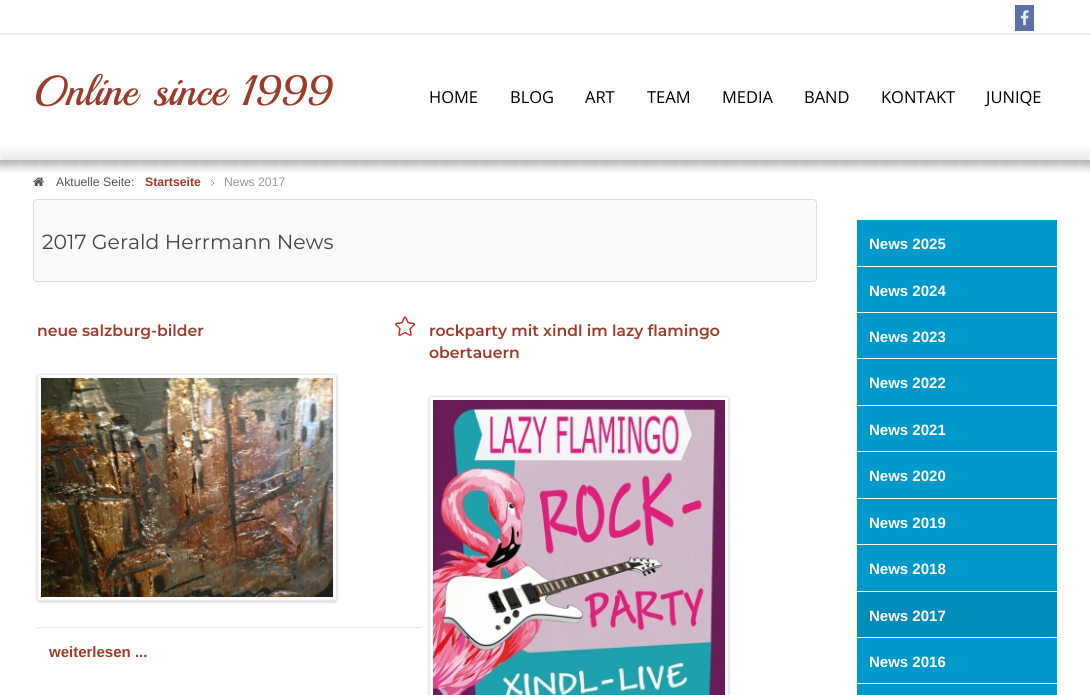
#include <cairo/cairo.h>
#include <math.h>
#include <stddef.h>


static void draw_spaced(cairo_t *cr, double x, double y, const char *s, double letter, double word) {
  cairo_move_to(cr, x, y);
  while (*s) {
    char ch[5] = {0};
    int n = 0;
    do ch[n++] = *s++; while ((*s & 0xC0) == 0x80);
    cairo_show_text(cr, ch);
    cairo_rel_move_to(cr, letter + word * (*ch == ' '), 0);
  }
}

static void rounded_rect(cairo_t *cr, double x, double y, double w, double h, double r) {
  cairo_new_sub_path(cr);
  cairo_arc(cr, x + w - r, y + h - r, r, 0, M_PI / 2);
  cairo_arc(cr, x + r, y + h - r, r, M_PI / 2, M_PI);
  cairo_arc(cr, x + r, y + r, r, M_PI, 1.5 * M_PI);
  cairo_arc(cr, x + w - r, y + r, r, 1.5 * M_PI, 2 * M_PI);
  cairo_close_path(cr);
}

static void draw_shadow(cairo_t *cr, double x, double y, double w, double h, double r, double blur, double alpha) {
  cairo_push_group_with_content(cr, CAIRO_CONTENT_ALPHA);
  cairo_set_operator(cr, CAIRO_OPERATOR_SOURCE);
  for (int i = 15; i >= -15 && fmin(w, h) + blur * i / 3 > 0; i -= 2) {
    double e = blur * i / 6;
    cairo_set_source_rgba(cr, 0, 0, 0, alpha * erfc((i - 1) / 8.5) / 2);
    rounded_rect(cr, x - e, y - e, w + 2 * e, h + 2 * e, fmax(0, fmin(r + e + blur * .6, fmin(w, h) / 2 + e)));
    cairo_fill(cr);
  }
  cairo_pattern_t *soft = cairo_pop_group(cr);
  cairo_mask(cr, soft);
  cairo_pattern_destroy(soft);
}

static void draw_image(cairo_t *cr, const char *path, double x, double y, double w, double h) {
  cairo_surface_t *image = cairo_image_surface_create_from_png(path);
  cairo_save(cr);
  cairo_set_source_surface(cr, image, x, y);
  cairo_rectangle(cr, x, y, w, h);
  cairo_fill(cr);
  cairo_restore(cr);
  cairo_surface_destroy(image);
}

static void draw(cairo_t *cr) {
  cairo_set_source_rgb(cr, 1, 1, 1);
  cairo_paint(cr);
  cairo_set_source_rgb(cr, 234 / 255.0, 234 / 255.0, 234 / 255.0);
  cairo_rectangle(cr, 0, 33, 1090, 2);
  cairo_fill(cr);
  cairo_set_source_rgb(cr, 90 / 255.0, 114 / 255.0, 167 / 255.0);
  cairo_rectangle(cr, 1015, 5, 19, 26);
  cairo_fill(cr);
  draw_image(cr, "images/1.png", 1020, 10, 9, 16);
  cairo_save(cr);
  cairo_rectangle(cr, 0, 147, 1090, 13);
  cairo_clip(cr);
  cairo_set_source_rgb(cr, 0, 0, 0);
  draw_shadow(cr, 0, 153, 1090, 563, 0, 7, 0.1);
  cairo_restore(cr);
  draw_image(cr, "images/2.png", 0, 160, 1090, 13);
  draw_image(cr, "images/3.png", 33, 177, 11, 9);
  draw_image(cr, "images/4.png", 211, 180, 3, 6);
  cairo_set_source_rgb(cr, 250 / 255.0, 250 / 255.0, 250 / 255.0);
  rounded_rect(cr, 33.5, 199.5, 783, 82, 3.5);
  cairo_fill_preserve(cr);
  cairo_set_source_rgb(cr, 221 / 255.0, 221 / 255.0, 221 / 255.0);
  cairo_set_line_width(cr, 1);
  cairo_stroke(cr);
  draw_image(cr, "images/5.png", 395, 316, 20, 20);
  cairo_save(cr);
  cairo_set_fill_rule(cr, CAIRO_FILL_RULE_EVEN_ODD);
  cairo_new_path(cr);
  cairo_move_to(cr, 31, 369);
  cairo_line_to(cr, 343, 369);
  cairo_line_to(cr, 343, 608);
  cairo_line_to(cr, 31, 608);
  cairo_close_path(cr);
  cairo_move_to(cr, 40, 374);
  cairo_line_to(cr, 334, 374);
  cairo_curve_to(cr, 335.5, 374, 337, 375.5, 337, 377);
  cairo_line_to(cr, 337, 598);
  cairo_curve_to(cr, 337, 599.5, 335.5, 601, 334, 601);
  cairo_line_to(cr, 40, 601);
  cairo_curve_to(cr, 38.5, 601, 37, 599.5, 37, 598);
  cairo_line_to(cr, 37, 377);
  cairo_curve_to(cr, 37, 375.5, 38.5, 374, 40, 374);
  cairo_close_path(cr);
  cairo_clip(cr);
  cairo_set_source_rgb(cr, 0, 0, 0);
  draw_shadow(cr, 37, 375, 300, 227, 3, 1.5, 0.2);
  cairo_restore(cr);
  rounded_rect(cr, 37.5, 374.5, 299, 226, 2.5);
  cairo_set_source_rgba(cr, 0, 0, 0, 0.1);
  cairo_stroke(cr);
  draw_image(cr, "images/6.png", 41, 378, 292, 219);
  cairo_set_source_rgb(cr, 230 / 255.0, 230 / 255.0, 230 / 255.0);
  cairo_rectangle(cr, 37, 627, 384, 1);
  cairo_fill(cr);
  cairo_save(cr);
  cairo_set_fill_rule(cr, CAIRO_FILL_RULE_EVEN_ODD);
  cairo_new_path(cr);
  cairo_move_to(cr, 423, 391);
  cairo_line_to(cr, 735, 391);
  cairo_line_to(cr, 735, 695);
  cairo_line_to(cr, 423, 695);
  cairo_close_path(cr);
  cairo_move_to(cr, 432, 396);
  cairo_line_to(cr, 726, 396);
  cairo_curve_to(cr, 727.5, 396, 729, 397.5, 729, 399);
  cairo_line_to(cr, 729, 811);
  cairo_curve_to(cr, 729, 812.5, 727.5, 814, 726, 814);
  cairo_line_to(cr, 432, 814);
  cairo_curve_to(cr, 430.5, 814, 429, 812.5, 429, 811);
  cairo_line_to(cr, 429, 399);
  cairo_curve_to(cr, 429, 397.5, 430.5, 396, 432, 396);
  cairo_close_path(cr);
  cairo_clip(cr);
  cairo_set_source_rgb(cr, 0, 0, 0);
  draw_shadow(cr, 429, 397, 300, 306, 3, 1.5, 0.2);
  cairo_restore(cr);
  rounded_rect(cr, 429.5, 396.5, 299, 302, 2.5);
  cairo_set_source_rgba(cr, 0, 0, 0, 0.1);
  cairo_stroke(cr);
  draw_image(cr, "images/7.png", 433, 400, 292, 295);
  cairo_set_source_rgb(cr, 0, 153 / 255.0, 204 / 255.0);
  cairo_rectangle(cr, 857, 220, 200, 475);
  cairo_fill(cr);
  cairo_set_source_rgb(cr, 1, 1, 1);
  cairo_rectangle(cr, 857, 266, 200, 1);
  cairo_fill(cr);
  cairo_rectangle(cr, 857, 312, 200, 1);
  cairo_fill(cr);
  cairo_rectangle(cr, 857, 358, 200, 1);
  cairo_fill(cr);
  cairo_rectangle(cr, 857, 405, 200, 1);
  cairo_fill(cr);
  cairo_rectangle(cr, 857, 451, 200, 1);
  cairo_fill(cr);
  cairo_rectangle(cr, 857, 498, 200, 1);
  cairo_fill(cr);
  cairo_rectangle(cr, 857, 544, 200, 1);
  cairo_fill(cr);
  cairo_rectangle(cr, 857, 591, 200, 1);
  cairo_fill(cr);
  cairo_rectangle(cr, 857, 637, 200, 1);
  cairo_fill(cr);
  cairo_set_source_rgb(cr, 0, 141 / 255.0, 188 / 255.0);
  cairo_rectangle(cr, 857, 592, 200, 45);
  cairo_fill(cr);
  cairo_set_source_rgb(cr, 1, 1, 1);
  cairo_rectangle(cr, 857, 683, 200, 1);
  cairo_fill(cr);
  cairo_select_font_face(cr, "Playball", CAIRO_FONT_SLANT_NORMAL, CAIRO_FONT_WEIGHT_NORMAL);
  cairo_set_font_size(cr, 42);
  cairo_set_source_rgb(cr, 158 / 255.0, 58 / 255.0, 44 / 255.0);
  draw_spaced(cr, 33, 105, "Online since 1999", 0, 3);
  cairo_select_font_face(cr, "Open Sans", CAIRO_FONT_SLANT_NORMAL, CAIRO_FONT_WEIGHT_NORMAL);
  cairo_set_font_size(cr, 16.5);
  cairo_set_source_rgb(cr, 0, 0, 0);
  cairo_move_to(cr, 429, 103);
  cairo_show_text(cr, "HOME");
  cairo_move_to(cr, 510, 103);
  cairo_show_text(cr, "BLOG");
  cairo_move_to(cr, 585, 103);
  cairo_show_text(cr, "ART");
  cairo_move_to(cr, 647, 103);
  cairo_show_text(cr, "TEAM");
  cairo_move_to(cr, 722, 103);
  cairo_show_text(cr, "MEDIA");
  cairo_move_to(cr, 804, 103);
  cairo_show_text(cr, "BAND");
  cairo_move_to(cr, 881, 103);
  cairo_show_text(cr, "KONTAKT");
  cairo_move_to(cr, 986, 103);
  cairo_show_text(cr, "JUNIQE");
  cairo_select_font_face(cr, "Liberation Sans", CAIRO_FONT_SLANT_NORMAL, CAIRO_FONT_WEIGHT_NORMAL);
  cairo_set_font_size(cr, 12.25);
  cairo_set_source_rgb(cr, 85 / 255.0, 85 / 255.0, 85 / 255.0);
  cairo_move_to(cr, 56, 186);
  cairo_show_text(cr, "Aktuelle Seite:");
  cairo_select_font_face(cr, "Liberation Sans", CAIRO_FONT_SLANT_NORMAL, CAIRO_FONT_WEIGHT_BOLD);
  cairo_set_source_rgb(cr, 158 / 255.0, 58 / 255.0, 44 / 255.0);
  cairo_move_to(cr, 145, 186);
  cairo_show_text(cr, "Startseite");
  cairo_select_font_face(cr, "Liberation Sans", CAIRO_FONT_SLANT_NORMAL, CAIRO_FONT_WEIGHT_NORMAL);
  cairo_set_source_rgb(cr, 153 / 255.0, 153 / 255.0, 153 / 255.0);
  cairo_move_to(cr, 224, 186);
  cairo_show_text(cr, "News 2017");
  cairo_select_font_face(cr, "Montserrat", CAIRO_FONT_SLANT_NORMAL, CAIRO_FONT_WEIGHT_NORMAL);
  cairo_set_font_size(cr, 20.4);
  cairo_set_source_rgb(cr, 68 / 255.0, 68 / 255.0, 68 / 255.0);
  cairo_move_to(cr, 42, 249);
  cairo_show_text(cr, "2017 Gerald Herrmann News");
  cairo_select_font_face(cr, "Montserrat SemiBold", CAIRO_FONT_SLANT_NORMAL, CAIRO_FONT_WEIGHT_NORMAL);
  cairo_set_font_size(cr, 15.6);
  cairo_set_source_rgb(cr, 158 / 255.0, 58 / 255.0, 44 / 255.0);
  cairo_move_to(cr, 37, 336);
  cairo_show_text(cr, "neue salzburg-bilder");
  cairo_select_font_face(cr, "Liberation Sans", CAIRO_FONT_SLANT_NORMAL, CAIRO_FONT_WEIGHT_BOLD);
  cairo_set_font_size(cr, 15);
  cairo_move_to(cr, 49, 657);
  cairo_show_text(cr, "weiterlesen ...");
  cairo_select_font_face(cr, "Montserrat SemiBold", CAIRO_FONT_SLANT_NORMAL, CAIRO_FONT_WEIGHT_NORMAL);
  cairo_set_font_size(cr, 15.6);
  cairo_move_to(cr, 429, 336);
  cairo_show_text(cr, "rockparty mit xindl im lazy flamingo");
  cairo_move_to(cr, 429, 358);
  cairo_show_text(cr, "obertauern");
  cairo_select_font_face(cr, "Liberation Sans", CAIRO_FONT_SLANT_NORMAL, CAIRO_FONT_WEIGHT_BOLD);
  cairo_set_font_size(cr, 15);
  cairo_set_source_rgb(cr, 1, 1, 1);
  cairo_move_to(cr, 869, 249);
  cairo_show_text(cr, "News 2025");
  cairo_move_to(cr, 869, 296);
  cairo_show_text(cr, "News 2024");
  cairo_move_to(cr, 869, 342);
  cairo_show_text(cr, "News 2023");
  cairo_move_to(cr, 869, 388);
  cairo_show_text(cr, "News 2022");
  cairo_move_to(cr, 869, 435);
  cairo_show_text(cr, "News 2021");
  cairo_move_to(cr, 869, 481);
  cairo_show_text(cr, "News 2020");
  cairo_move_to(cr, 869, 528);
  cairo_show_text(cr, "News 2019");
  cairo_move_to(cr, 869, 574);
  cairo_show_text(cr, "News 2018");
  cairo_move_to(cr, 869, 621);
  cairo_show_text(cr, "News 2017");
  cairo_move_to(cr, 869, 667);
  cairo_show_text(cr, "News 2016");
}

int main(void) {
  cairo_surface_t *surface = cairo_image_surface_create(CAIRO_FORMAT_RGB24, 1090, 695);
  cairo_t *cr = cairo_create(surface);
  cairo_font_options_t *options = cairo_font_options_create();
  cairo_font_options_set_hint_metrics(options, CAIRO_HINT_METRICS_OFF);
  cairo_font_options_set_hint_style(options, CAIRO_HINT_STYLE_NONE);
  cairo_set_font_options(cr, options);
  cairo_set_miter_limit(cr, 4);
  draw(cr);
  cairo_surface_write_to_png(surface, "out.png");
  cairo_font_options_destroy(options);
  cairo_destroy(cr);
  cairo_surface_destroy(surface);
  return 0;
}
